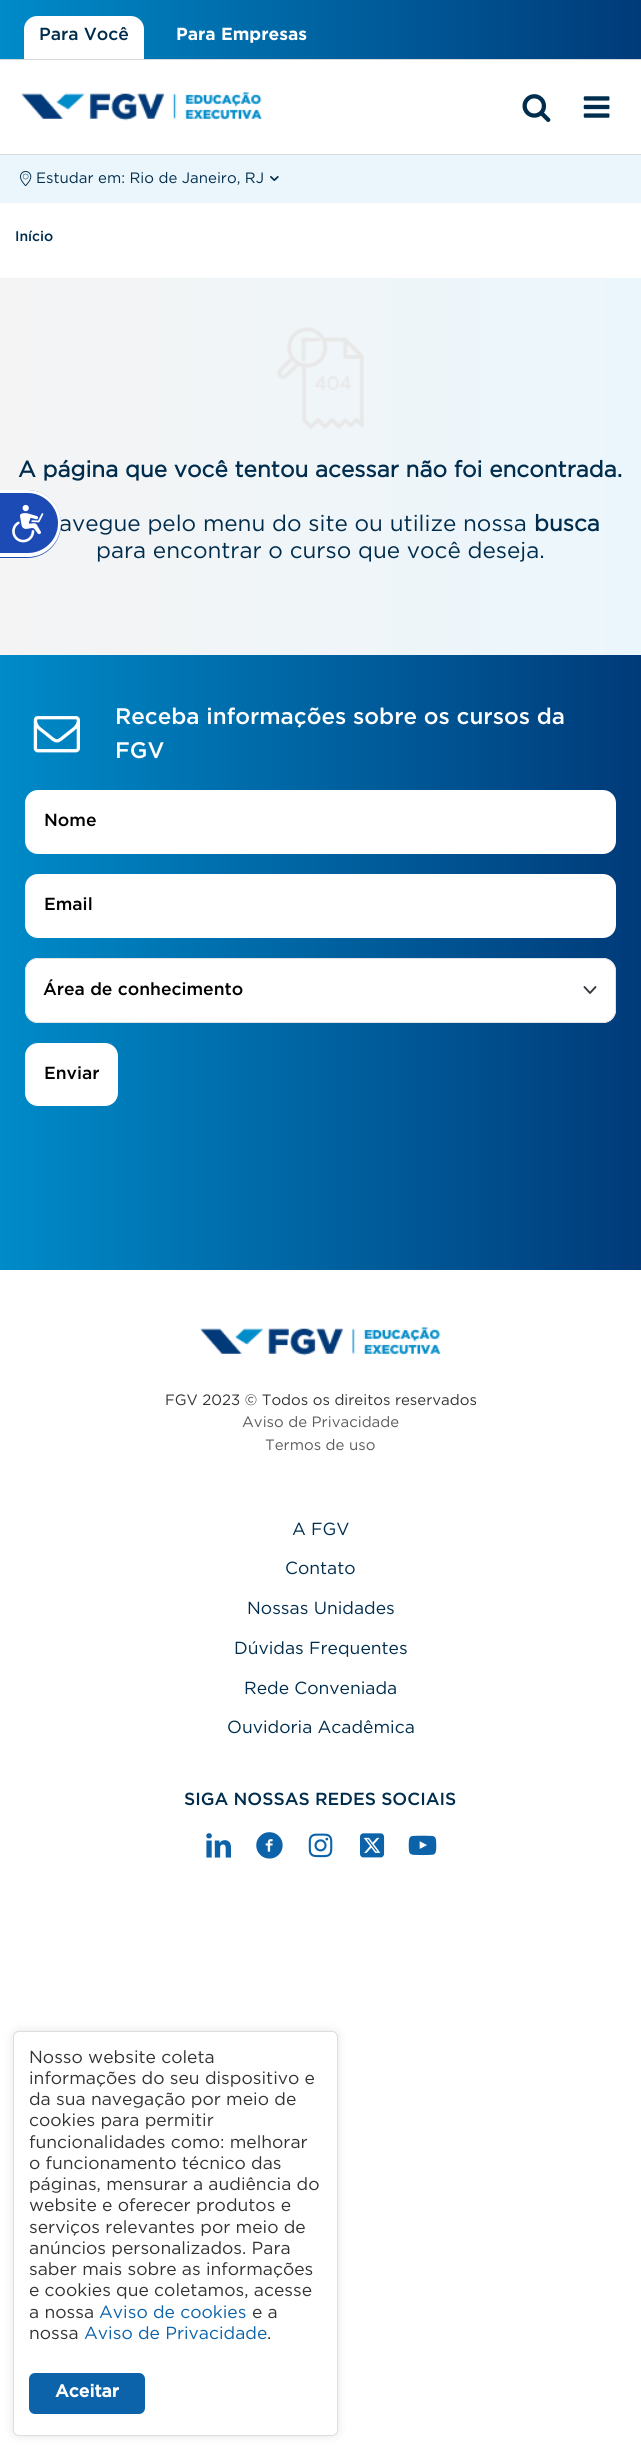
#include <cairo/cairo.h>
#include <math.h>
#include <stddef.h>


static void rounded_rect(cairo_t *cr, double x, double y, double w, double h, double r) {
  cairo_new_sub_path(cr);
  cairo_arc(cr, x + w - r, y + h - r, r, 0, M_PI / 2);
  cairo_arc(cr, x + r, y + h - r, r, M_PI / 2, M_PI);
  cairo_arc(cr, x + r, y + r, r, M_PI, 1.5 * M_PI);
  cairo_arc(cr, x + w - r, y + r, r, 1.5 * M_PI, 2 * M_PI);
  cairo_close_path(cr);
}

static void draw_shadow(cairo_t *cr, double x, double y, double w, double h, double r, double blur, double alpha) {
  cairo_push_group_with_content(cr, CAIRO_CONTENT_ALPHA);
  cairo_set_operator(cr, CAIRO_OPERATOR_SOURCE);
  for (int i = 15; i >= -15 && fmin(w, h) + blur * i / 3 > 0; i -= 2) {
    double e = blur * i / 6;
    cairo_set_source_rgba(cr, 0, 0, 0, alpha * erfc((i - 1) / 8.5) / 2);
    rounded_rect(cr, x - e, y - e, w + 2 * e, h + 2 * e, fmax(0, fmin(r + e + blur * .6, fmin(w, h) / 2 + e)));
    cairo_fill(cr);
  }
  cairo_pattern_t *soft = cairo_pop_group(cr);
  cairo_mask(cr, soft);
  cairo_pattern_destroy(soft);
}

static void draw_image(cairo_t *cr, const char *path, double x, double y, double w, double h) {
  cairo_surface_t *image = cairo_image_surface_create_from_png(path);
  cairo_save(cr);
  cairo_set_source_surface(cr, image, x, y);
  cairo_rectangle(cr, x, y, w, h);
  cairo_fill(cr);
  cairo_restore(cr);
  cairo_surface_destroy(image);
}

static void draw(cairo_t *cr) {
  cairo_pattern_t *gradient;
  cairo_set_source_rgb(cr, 1, 1, 1);
  cairo_paint(cr);
  gradient = cairo_pattern_create_linear(0, 29, 641, 29);
  cairo_pattern_add_color_stop_rgba(gradient, 0, 0, 139 / 255.0, 201 / 255.0, 1);
  cairo_pattern_add_color_stop_rgba(gradient, 1, 0, 58 / 255.0, 121 / 255.0, 1);
  cairo_set_source(cr, gradient);
  cairo_pattern_destroy(gradient);
  cairo_rectangle(cr, 0, 0, 641, 59);
  cairo_fill(cr);
  cairo_set_source_rgb(cr, 1, 1, 1);
  cairo_new_path(cr);
  cairo_move_to(cr, 37, 16);
  cairo_line_to(cr, 131, 16);
  cairo_curve_to(cr, 138, 16, 144, 22, 144, 29);
  cairo_line_to(cr, 144, 59);
  cairo_line_to(cr, 24, 59);
  cairo_line_to(cr, 24, 29);
  cairo_curve_to(cr, 24, 22, 30, 16, 37, 16);
  cairo_close_path(cr);
  cairo_fill(cr);
  cairo_set_source_rgb(cr, 215 / 255.0, 217 / 255.0, 221 / 255.0);
  cairo_rectangle(cr, 0, 59, 641, 1);
  cairo_fill(cr);
  cairo_rectangle(cr, 0, 154, 641, 1);
  cairo_fill(cr);
  draw_image(cr, "images/1.png", 21, 91, 241, 30);
  draw_image(cr, "images/2.png", 522, 94, 29, 28);
  draw_image(cr, "images/3.png", 583, 96, 27, 22);
  cairo_set_source_rgb(cr, 235 / 255.0, 246 / 255.0, 252 / 255.0);
  cairo_rectangle(cr, 0, 155, 641, 48);
  cairo_fill(cr);
  draw_image(cr, "images/4.png", 20, 171, 12, 15);
  draw_image(cr, "images/5.png", 270, 176, 9, 5);
  gradient = cairo_pattern_create_linear(0, 466, 641, 466);
  cairo_pattern_add_color_stop_rgba(gradient, 0, 244 / 255.0, 244 / 255.0, 244 / 255.0, 1);
  cairo_pattern_add_color_stop_rgba(gradient, 1, 235 / 255.0, 246 / 255.0, 252 / 255.0, 1);
  cairo_set_source(cr, gradient);
  cairo_pattern_destroy(gradient);
  cairo_rectangle(cr, 0, 278, 641, 377);
  cairo_fill(cr);
  draw_image(cr, "images/6.png", 277, 327, 87, 102);
  gradient = cairo_pattern_create_linear(0, 963, 641, 963);
  cairo_pattern_add_color_stop_rgba(gradient, 0, 0, 139 / 255.0, 201 / 255.0, 1);
  cairo_pattern_add_color_stop_rgba(gradient, 1, 0, 58 / 255.0, 121 / 255.0, 1);
  cairo_set_source(cr, gradient);
  cairo_pattern_destroy(gradient);
  cairo_rectangle(cr, 0, 655, 641, 615);
  cairo_fill(cr);
  draw_image(cr, "images/7.png", 33, 716, 47, 37);
  cairo_set_source_rgb(cr, 1, 1, 1);
  rounded_rect(cr, 25, 790, 591, 64, 13);
  cairo_fill(cr);
  rounded_rect(cr, 25, 874, 591, 64, 13);
  cairo_fill(cr);
  rounded_rect(cr, 25, 958, 591, 65, 13);
  cairo_fill(cr);
  cairo_new_path(cr);
  cairo_move_to(cr, 584.5, 987);
  cairo_line_to(cr, 590, 993);
  cairo_line_to(cr, 595.5, 987);
  cairo_set_source_rgb(cr, 52 / 255.0, 58 / 255.0, 64 / 255.0);
  cairo_set_line_width(cr, 1.9);
  cairo_set_line_cap(cr, CAIRO_LINE_CAP_ROUND);
  cairo_set_line_join(cr, CAIRO_LINE_JOIN_ROUND);
  cairo_stroke(cr);
  rounded_rect(cr, 25.5, 958.5, 590, 64, 12.5);
  cairo_set_source_rgb(cr, 222 / 255.0, 226 / 255.0, 230 / 255.0);
  cairo_set_line_width(cr, 1);
  cairo_set_line_cap(cr, CAIRO_LINE_CAP_BUTT);
  cairo_set_line_join(cr, CAIRO_LINE_JOIN_MITER);
  cairo_stroke(cr);
  cairo_set_source_rgb(cr, 1, 1, 1);
  rounded_rect(cr, 25, 1043, 93, 63, 13);
  cairo_fill(cr);
  draw_image(cr, "images/8.png", 200, 1326, 241, 30);
  draw_image(cr, "images/9.png", 206, 1833, 25, 25);
  draw_image(cr, "images/10.png", 256, 1832, 27, 27);
  draw_image(cr, "images/11.png", 308, 1833, 25, 25);
  draw_image(cr, "images/12.png", 360, 1833, 25, 25);
  draw_image(cr, "images/13.png", 408, 1835, 29, 21);
  cairo_set_source_rgb(cr, 0, 0, 0);
  draw_shadow(cr, 13, 2031, 325, 405, 6, 5, 0.1);
  cairo_set_source_rgb(cr, 1, 1, 1);
  rounded_rect(cr, 13.5, 2031.5, 324, 404, 5.5);
  cairo_fill_preserve(cr);
  cairo_set_source_rgb(cr, 221 / 255.0, 221 / 255.0, 221 / 255.0);
  cairo_stroke(cr);
  cairo_set_source_rgb(cr, 12 / 255.0, 99 / 255.0, 170 / 255.0);
  rounded_rect(cr, 29, 2373, 116, 41, 6);
  cairo_fill(cr);
  cairo_select_font_face(cr, "Gotham Medium", CAIRO_FONT_SLANT_NORMAL, CAIRO_FONT_WEIGHT_NORMAL);
  cairo_set_font_size(cr, 17.5);
  cairo_set_source_rgb(cr, 0, 45 / 255.0, 77 / 255.0);
  cairo_move_to(cr, 39, 40);
  cairo_show_text(cr, "Para Você");
  cairo_select_font_face(cr, "Gotham", CAIRO_FONT_SLANT_NORMAL, CAIRO_FONT_WEIGHT_BOLD);
  cairo_set_source_rgb(cr, 1, 1, 1);
  cairo_move_to(cr, 176, 40);
  cairo_show_text(cr, "Para Empresas");
  cairo_select_font_face(cr, "Gotham", CAIRO_FONT_SLANT_NORMAL, CAIRO_FONT_WEIGHT_NORMAL);
  cairo_set_font_size(cr, 15);
  cairo_set_source_rgb(cr, 0, 45 / 255.0, 77 / 255.0);
  cairo_move_to(cr, 36, 183);
  cairo_show_text(cr, "Estudar em: Rio de Janeiro, RJ");
  cairo_select_font_face(cr, "Gotham Medium", CAIRO_FONT_SLANT_NORMAL, CAIRO_FONT_WEIGHT_NORMAL);
  cairo_set_font_size(cr, 14);
  cairo_move_to(cr, 15, 241);
  cairo_show_text(cr, "Início");
  cairo_select_font_face(cr, "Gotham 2", CAIRO_FONT_SLANT_NORMAL, CAIRO_FONT_WEIGHT_BOLD);
  cairo_set_font_size(cr, 22.5);
  cairo_move_to(cr, 18, 477);
  cairo_show_text(cr, "A página que você tentou acessar não foi encontrada.");
  cairo_select_font_face(cr, "Gotham", CAIRO_FONT_SLANT_NORMAL, CAIRO_FONT_WEIGHT_NORMAL);
  cairo_move_to(cr, 59, 531);
  cairo_show_text(cr, "avegue pelo menu do site ou utilize nossa");
  cairo_select_font_face(cr, "Gotham 2", CAIRO_FONT_SLANT_NORMAL, CAIRO_FONT_WEIGHT_BOLD);
  cairo_move_to(cr, 534, 531);
  cairo_show_text(cr, "busca");
  cairo_select_font_face(cr, "Gotham", CAIRO_FONT_SLANT_NORMAL, CAIRO_FONT_WEIGHT_NORMAL);
  cairo_move_to(cr, 96, 558);
  cairo_show_text(cr, "para encontrar o curso que você deseja.");
  cairo_select_font_face(cr, "Gotham Medium", CAIRO_FONT_SLANT_NORMAL, CAIRO_FONT_WEIGHT_NORMAL);
  cairo_set_source_rgb(cr, 1, 1, 1);
  cairo_move_to(cr, 115, 724);
  cairo_show_text(cr, "Receba informações sobre os cursos da");
  cairo_move_to(cr, 115, 758);
  cairo_show_text(cr, "FGV");
  cairo_set_font_size(cr, 17.5);
  cairo_set_source_rgb(cr, 0, 0, 0);
  cairo_move_to(cr, 44, 826);
  cairo_show_text(cr, "Nome");
  cairo_move_to(cr, 44, 910);
  cairo_show_text(cr, "Email");
  cairo_move_to(cr, 43, 995);
  cairo_show_text(cr, "Área de conhecimento");
  cairo_move_to(cr, 44, 1079);
  cairo_show_text(cr, "Enviar");
  cairo_select_font_face(cr, "Gotham", CAIRO_FONT_SLANT_NORMAL, CAIRO_FONT_WEIGHT_NORMAL);
  cairo_set_font_size(cr, 15);
  cairo_set_source_rgb(cr, 51 / 255.0, 51 / 255.0, 51 / 255.0);
  cairo_move_to(cr, 165, 1405);
  cairo_show_text(cr, "FGV 2023 © Todos os direitos reservados");
  cairo_set_source_rgb(cr, 92 / 255.0, 91 / 255.0, 95 / 255.0);
  cairo_move_to(cr, 242, 1427);
  cairo_show_text(cr, "Aviso de Privacidade");
  cairo_move_to(cr, 265, 1450);
  cairo_show_text(cr, "Termos de uso");
  cairo_set_font_size(cr, 17.5);
  cairo_set_source_rgb(cr, 0, 45 / 255.0, 77 / 255.0);
  cairo_move_to(cr, 292, 1535);
  cairo_show_text(cr, "A FGV");
  cairo_move_to(cr, 285, 1574);
  cairo_show_text(cr, "Contato");
  cairo_move_to(cr, 247, 1614);
  cairo_show_text(cr, "Nossas Unidades");
  cairo_move_to(cr, 234, 1654);
  cairo_show_text(cr, "Dúvidas Frequentes");
  cairo_move_to(cr, 244, 1694);
  cairo_show_text(cr, "Rede Conveniada");
  cairo_move_to(cr, 227, 1733);
  cairo_show_text(cr, "Ouvidoria Acadêmica");
  cairo_select_font_face(cr, "Gotham Medium", CAIRO_FONT_SLANT_NORMAL, CAIRO_FONT_WEIGHT_NORMAL);
  cairo_move_to(cr, 184, 1805);
  cairo_show_text(cr, "SIGA NOSSAS REDES SOCIAIS");
  cairo_set_source_rgb(cr, 28 / 255.0, 75 / 255.0, 182 / 255.0);
  cairo_new_path(cr);
  cairo_move_to(cr, 0, 490);
  cairo_line_to(cr, 27, 490);
  cairo_curve_to(cr, 46, 490, 61, 505, 61, 524);
  cairo_curve_to(cr, 61, 543, 46, 558, 27, 558);
  cairo_line_to(cr, 0, 558);
  cairo_close_path(cr);
  cairo_fill(cr);
  cairo_set_source_rgb(cr, 1, 1, 1);
  cairo_set_fill_rule(cr, CAIRO_FILL_RULE_EVEN_ODD);
  cairo_new_path(cr);
  cairo_move_to(cr, 0, 490);
  cairo_line_to(cr, 28, 490);
  cairo_curve_to(cr, 46, 490, 61, 505, 61, 523);
  cairo_curve_to(cr, 61, 542, 46, 557, 28, 557);
  cairo_line_to(cr, 0, 557);
  cairo_close_path(cr);
  cairo_move_to(cr, 0, 493);
  cairo_line_to(cr, 28, 493);
  cairo_curve_to(cr, 44, 493, 58, 507, 58, 523);
  cairo_curve_to(cr, 58, 540, 44, 553, 28, 553);
  cairo_line_to(cr, 0, 553);
  cairo_close_path(cr);
  cairo_fill(cr);
  draw_image(cr, "images/14.png", 12, 505, 32, 38);
  cairo_select_font_face(cr, "Gotham", CAIRO_FONT_SLANT_NORMAL, CAIRO_FONT_WEIGHT_NORMAL);
  cairo_set_source_rgb(cr, 51 / 255.0, 51 / 255.0, 51 / 255.0);
  cairo_move_to(cr, 29, 2063);
  cairo_show_text(cr, "Nosso website coleta");
  cairo_move_to(cr, 29, 2084);
  cairo_show_text(cr, "informações do seu dispositivo e");
  cairo_move_to(cr, 29, 2105);
  cairo_show_text(cr, "da sua navegação por meio de");
  cairo_move_to(cr, 29, 2126);
  cairo_show_text(cr, "cookies para permitir");
  cairo_move_to(cr, 29, 2148);
  cairo_show_text(cr, "funcionalidades como: melhorar");
  cairo_move_to(cr, 29, 2169);
  cairo_show_text(cr, "o funcionamento técnico das");
  cairo_move_to(cr, 29, 2190);
  cairo_show_text(cr, "páginas, mensurar a audiência do");
  cairo_move_to(cr, 29, 2211);
  cairo_show_text(cr, "website e oferecer produtos e");
  cairo_move_to(cr, 29, 2233);
  cairo_show_text(cr, "serviços relevantes por meio de");
  cairo_move_to(cr, 29, 2254);
  cairo_show_text(cr, "anúncios personalizados. Para");
  cairo_move_to(cr, 29, 2275);
  cairo_show_text(cr, "saber mais sobre as informações");
  cairo_move_to(cr, 29, 2296);
  cairo_show_text(cr, "e cookies que coletamos, acesse");
  cairo_move_to(cr, 29, 2318);
  cairo_show_text(cr, "a nossa");
  cairo_set_source_rgb(cr, 12 / 255.0, 99 / 255.0, 170 / 255.0);
  cairo_move_to(cr, 99, 2318);
  cairo_show_text(cr, "Aviso de cookies");
  cairo_set_source_rgb(cr, 51 / 255.0, 51 / 255.0, 51 / 255.0);
  cairo_move_to(cr, 252, 2318);
  cairo_show_text(cr, "e a");
  cairo_move_to(cr, 29, 2339);
  cairo_show_text(cr, "nossa");
  cairo_set_source_rgb(cr, 12 / 255.0, 99 / 255.0, 170 / 255.0);
  cairo_move_to(cr, 84, 2339);
  cairo_show_text(cr, "Aviso de Privacidade");
  cairo_set_source_rgb(cr, 51 / 255.0, 51 / 255.0, 51 / 255.0);
  cairo_move_to(cr, 267, 2339);
  cairo_show_text(cr, ".");
  cairo_select_font_face(cr, "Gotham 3", CAIRO_FONT_SLANT_NORMAL, CAIRO_FONT_WEIGHT_BOLD);
  cairo_set_source_rgb(cr, 1, 1, 1);
  cairo_move_to(cr, 55, 2397);
  cairo_show_text(cr, "Aceitar");
}

int main(void) {
  cairo_surface_t *surface = cairo_image_surface_create(CAIRO_FORMAT_RGB24, 641, 2448);
  cairo_t *cr = cairo_create(surface);
  cairo_font_options_t *options = cairo_font_options_create();
  cairo_font_options_set_hint_metrics(options, CAIRO_HINT_METRICS_OFF);
  cairo_font_options_set_hint_style(options, CAIRO_HINT_STYLE_NONE);
  cairo_set_font_options(cr, options);
  cairo_set_miter_limit(cr, 4);
  draw(cr);
  cairo_surface_write_to_png(surface, "out.png");
  cairo_font_options_destroy(options);
  cairo_destroy(cr);
  cairo_surface_destroy(surface);
  return 0;
}
